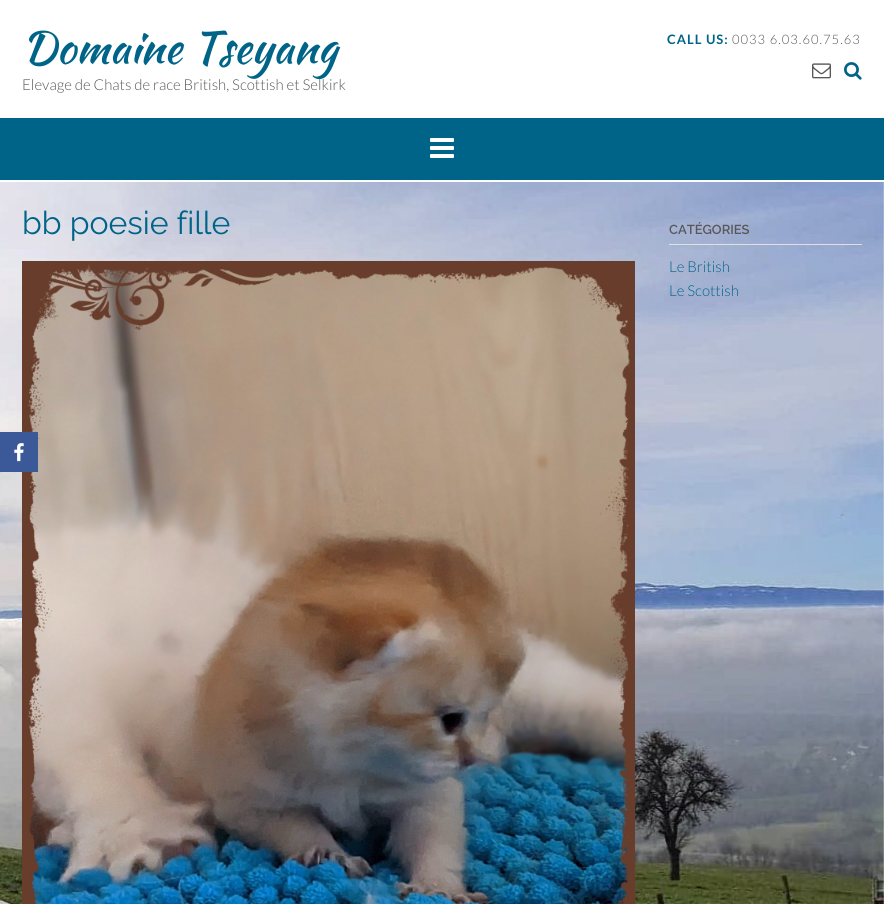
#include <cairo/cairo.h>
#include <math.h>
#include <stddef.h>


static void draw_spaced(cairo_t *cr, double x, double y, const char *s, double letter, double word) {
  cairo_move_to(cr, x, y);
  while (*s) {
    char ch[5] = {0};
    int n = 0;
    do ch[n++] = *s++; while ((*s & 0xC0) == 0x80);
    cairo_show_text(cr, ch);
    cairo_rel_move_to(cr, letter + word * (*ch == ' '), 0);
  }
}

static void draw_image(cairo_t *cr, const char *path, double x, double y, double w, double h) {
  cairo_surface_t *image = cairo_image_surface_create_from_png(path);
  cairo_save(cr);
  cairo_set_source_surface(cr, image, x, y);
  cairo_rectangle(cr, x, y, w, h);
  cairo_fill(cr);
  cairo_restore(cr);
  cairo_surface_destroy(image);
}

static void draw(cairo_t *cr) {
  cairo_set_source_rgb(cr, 1, 1, 1);
  cairo_paint(cr);
  draw_image(cr, "images/1.png", 0, 182, 884, 722);
  draw_image(cr, "images/2.png", 812, 63, 19, 16);
  draw_image(cr, "images/3.png", 844, 62, 18, 18);
  cairo_set_source_rgb(cr, 0, 100 / 255.0, 137 / 255.0);
  cairo_rectangle(cr, 0, 118, 884, 62);
  cairo_fill(cr);
  draw_image(cr, "images/4.png", 430, 138, 24, 20);
  draw_image(cr, "images/5.png", 22, 261, 613, 643);
  cairo_set_source_rgb(cr, 224 / 255.0, 224 / 255.0, 224 / 255.0);
  cairo_rectangle(cr, 669, 244, 193, 1);
  cairo_fill(cr);
  cairo_set_source_rgb(cr, 59 / 255.0, 89 / 255.0, 152 / 255.0);
  cairo_rectangle(cr, 0, 432, 38, 40);
  cairo_fill(cr);
  draw_image(cr, "images/6.png", 14, 443, 10, 19);
  cairo_select_font_face(cr, "Kaushan Script", CAIRO_FONT_SLANT_NORMAL, CAIRO_FONT_WEIGHT_NORMAL);
  cairo_set_font_size(cr, 44);
  cairo_set_source_rgb(cr, 0, 100 / 255.0, 137 / 255.0);
  cairo_move_to(cr, 22, 63);
  cairo_show_text(cr, "Domaine Tseyang");
  cairo_select_font_face(cr, "Lato Light", CAIRO_FONT_SLANT_NORMAL, CAIRO_FONT_WEIGHT_NORMAL);
  cairo_set_font_size(cr, 15);
  cairo_set_source_rgb(cr, 88 / 255.0, 88 / 255.0, 90 / 255.0);
  cairo_move_to(cr, 22, 90);
  cairo_show_text(cr, "Elevage de Chats de race British, Scottish et Selkirk");
  cairo_select_font_face(cr, "Lato", CAIRO_FONT_SLANT_NORMAL, CAIRO_FONT_WEIGHT_BOLD);
  cairo_set_font_size(cr, 13);
  cairo_set_source_rgb(cr, 0, 100 / 255.0, 137 / 255.0);
  draw_spaced(cr, 667, 44, "CALL US:", 1, 0);
  cairo_select_font_face(cr, "Lato Light", CAIRO_FONT_SLANT_NORMAL, CAIRO_FONT_WEIGHT_NORMAL);
  cairo_set_source_rgb(cr, 88 / 255.0, 88 / 255.0, 90 / 255.0);
  draw_spaced(cr, 732, 44, "0033 6.03.60.75.63", 1, 0);
  cairo_select_font_face(cr, "Raleway", CAIRO_FONT_SLANT_NORMAL, CAIRO_FONT_WEIGHT_NORMAL);
  cairo_set_font_size(cr, 32);
  cairo_set_source_rgb(cr, 0, 100 / 255.0, 137 / 255.0);
  cairo_move_to(cr, 22, 234);
  cairo_show_text(cr, "bb poesie fille");
  cairo_select_font_face(cr, "Raleway SemiBold", CAIRO_FONT_SLANT_NORMAL, CAIRO_FONT_WEIGHT_NORMAL);
  cairo_set_font_size(cr, 13);
  cairo_set_source_rgb(cr, 88 / 255.0, 88 / 255.0, 90 / 255.0);
  cairo_move_to(cr, 669, 234);
  cairo_show_text(cr, "CATÉGORIES");
  cairo_select_font_face(cr, "Lato Light", CAIRO_FONT_SLANT_NORMAL, CAIRO_FONT_WEIGHT_NORMAL);
  cairo_set_font_size(cr, 15);
  cairo_set_source_rgb(cr, 0, 100 / 255.0, 137 / 255.0);
  cairo_move_to(cr, 669, 272);
  cairo_show_text(cr, "Le British");
  cairo_move_to(cr, 669, 296);
  cairo_show_text(cr, "Le Scottish");
}

int main(void) {
  cairo_surface_t *surface = cairo_image_surface_create(CAIRO_FORMAT_RGB24, 884, 904);
  cairo_t *cr = cairo_create(surface);
  cairo_font_options_t *options = cairo_font_options_create();
  cairo_font_options_set_hint_metrics(options, CAIRO_HINT_METRICS_OFF);
  cairo_font_options_set_hint_style(options, CAIRO_HINT_STYLE_NONE);
  cairo_set_font_options(cr, options);
  cairo_set_miter_limit(cr, 4);
  draw(cr);
  cairo_surface_write_to_png(surface, "out.png");
  cairo_font_options_destroy(options);
  cairo_destroy(cr);
  cairo_surface_destroy(surface);
  return 0;
}
